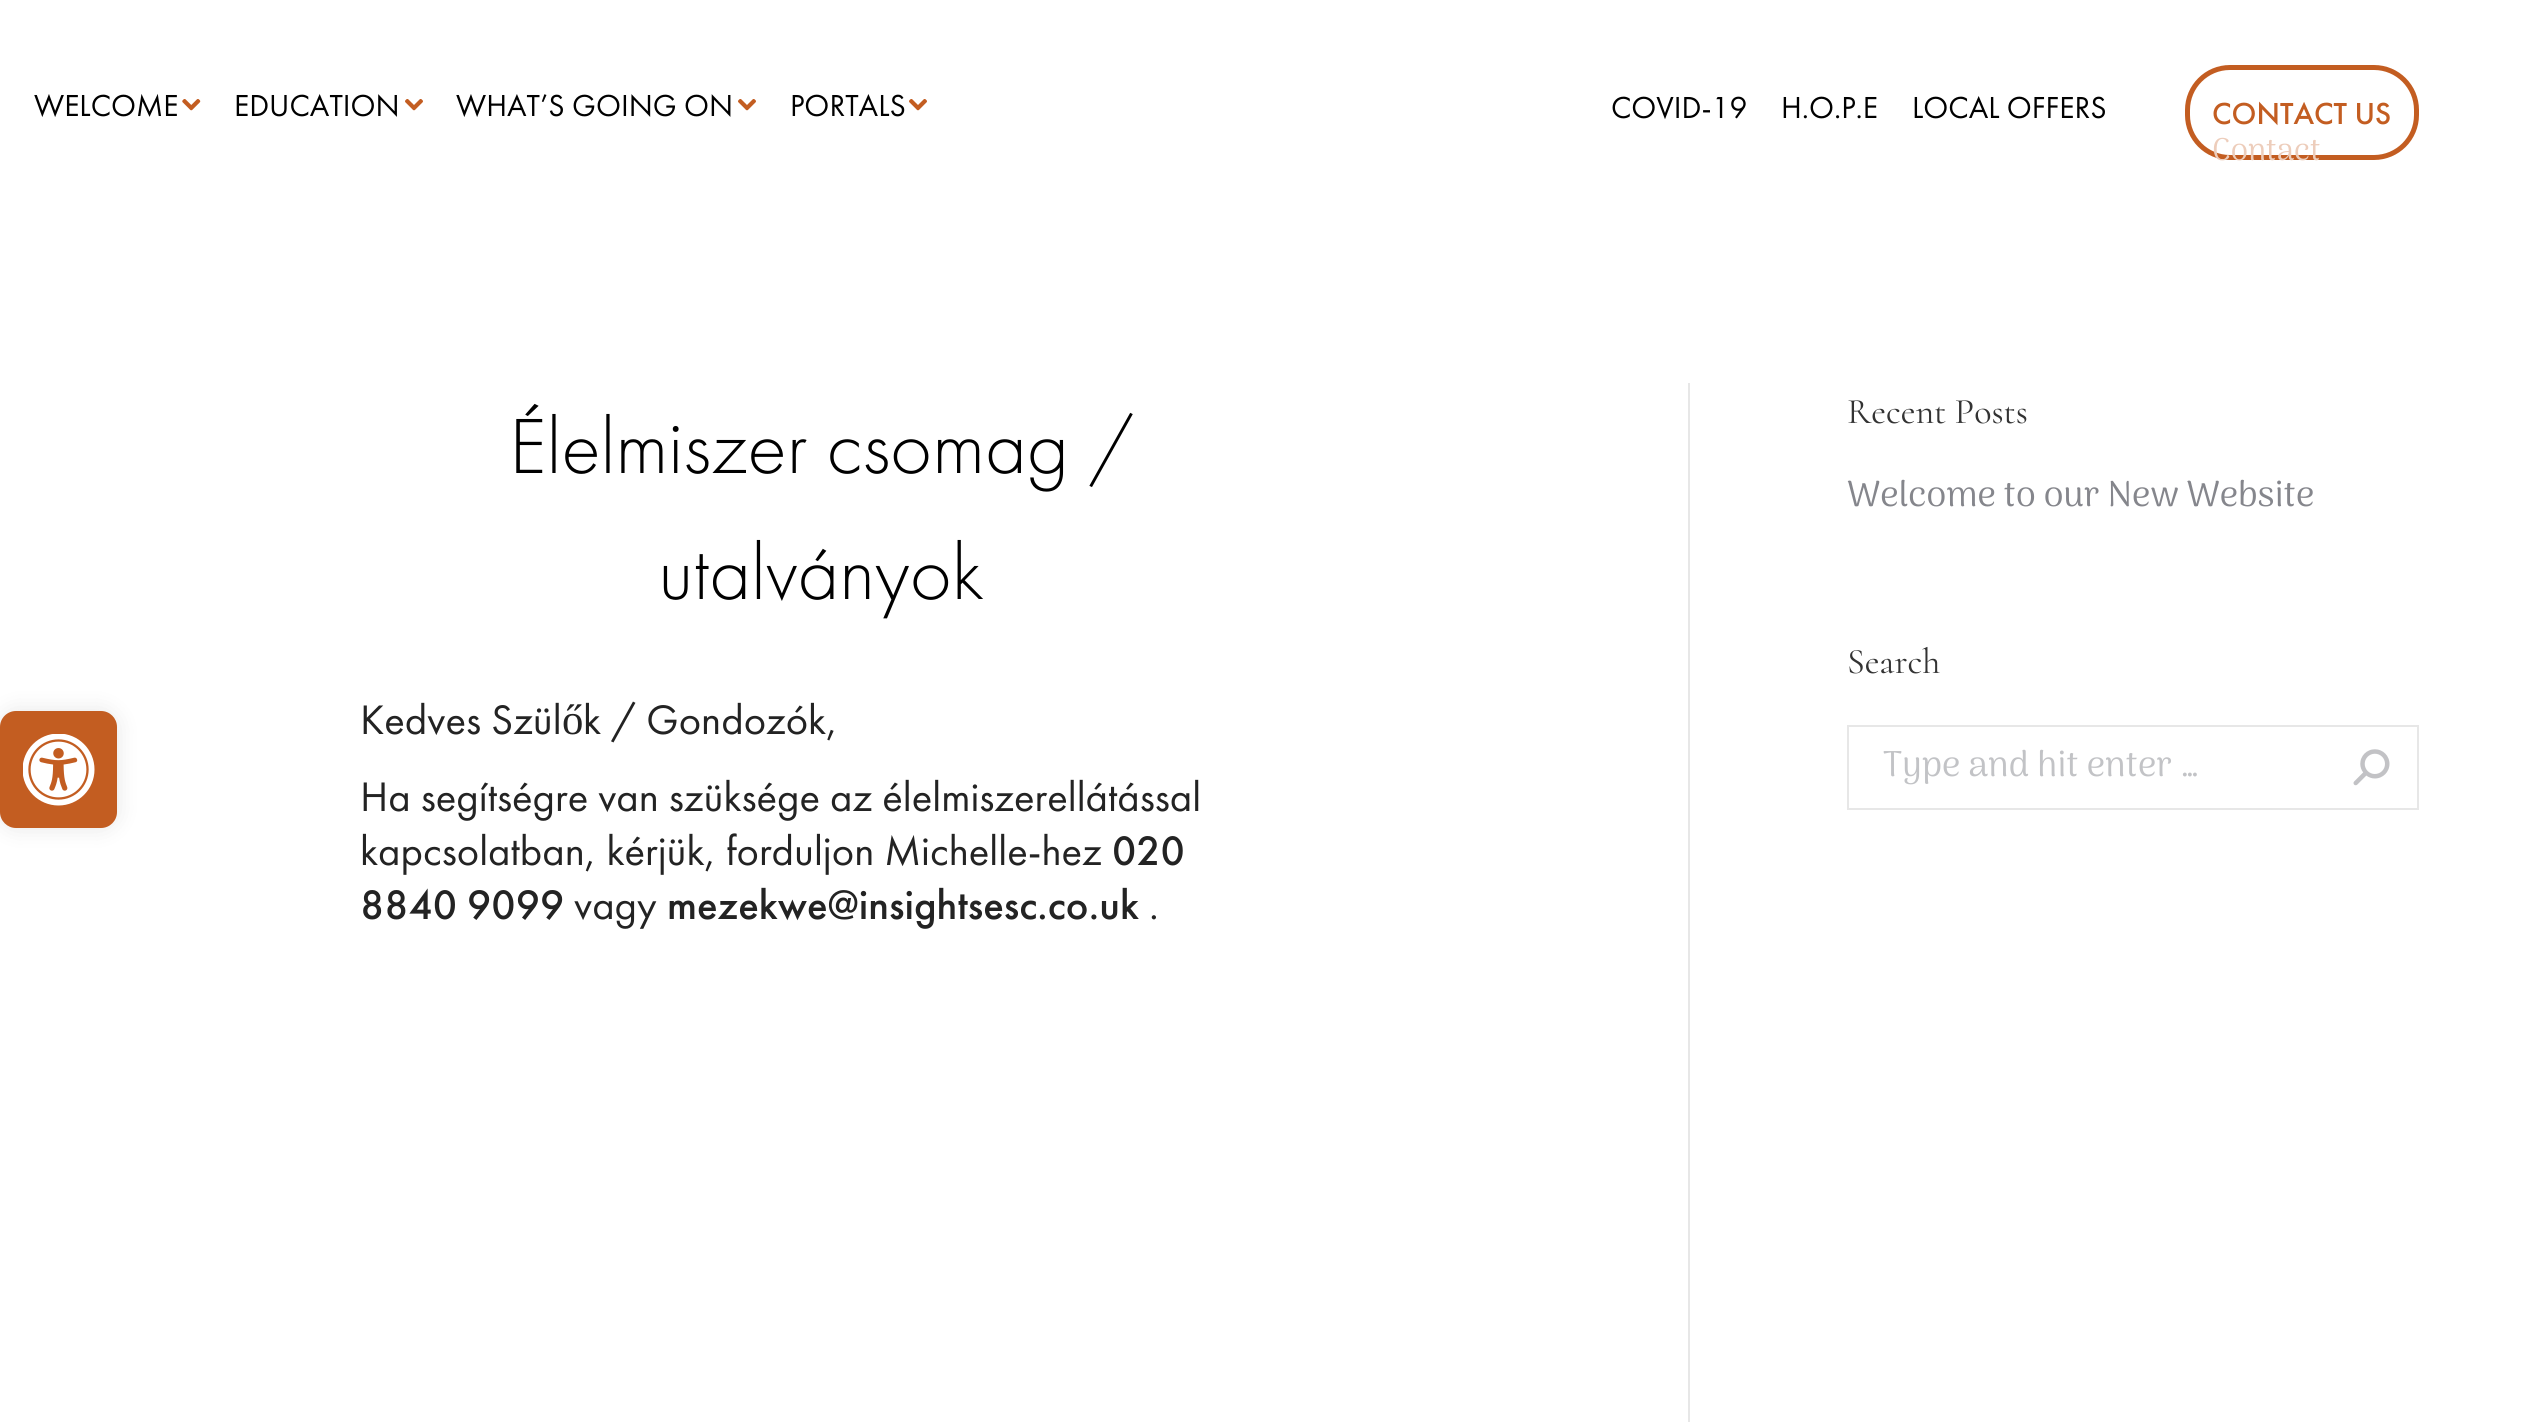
#include <cairo/cairo.h>
#include <math.h>
#include <stddef.h>


static void rounded_rect(cairo_t *cr, double x, double y, double w, double h, double r) {
  cairo_new_sub_path(cr);
  cairo_arc(cr, x + w - r, y + h - r, r, 0, M_PI / 2);
  cairo_arc(cr, x + r, y + h - r, r, M_PI / 2, M_PI);
  cairo_arc(cr, x + r, y + r, r, M_PI, 1.5 * M_PI);
  cairo_arc(cr, x + w - r, y + r, r, 1.5 * M_PI, 2 * M_PI);
  cairo_close_path(cr);
}

static void draw_shadow(cairo_t *cr, double x, double y, double w, double h, double r, double blur, double alpha) {
  cairo_push_group_with_content(cr, CAIRO_CONTENT_ALPHA);
  cairo_set_operator(cr, CAIRO_OPERATOR_SOURCE);
  for (int i = 15; i >= -15 && fmin(w, h) + blur * i / 3 > 0; i -= 2) {
    double e = blur * i / 6;
    cairo_set_source_rgba(cr, 0, 0, 0, alpha * erfc((i - 1) / 8.5) / 2);
    rounded_rect(cr, x - e, y - e, w + 2 * e, h + 2 * e, fmax(0, fmin(r + e + blur * .6, fmin(w, h) / 2 + e)));
    cairo_fill(cr);
  }
  cairo_pattern_t *soft = cairo_pop_group(cr);
  cairo_mask(cr, soft);
  cairo_pattern_destroy(soft);
}

static void draw_image(cairo_t *cr, const char *path, double x, double y, double w, double h) {
  cairo_surface_t *image = cairo_image_surface_create_from_png(path);
  cairo_save(cr);
  cairo_set_source_surface(cr, image, x, y);
  cairo_rectangle(cr, x, y, w, h);
  cairo_fill(cr);
  cairo_restore(cr);
  cairo_surface_destroy(image);
}

static void draw(cairo_t *cr) {
  cairo_set_source_rgb(cr, 1, 1, 1);
  cairo_paint(cr);
  draw_image(cr, "images/1.png", 182, 99, 19, 12);
  draw_image(cr, "images/2.png", 405, 99, 18, 12);
  draw_image(cr, "images/2.png", 738, 99, 18, 12);
  draw_image(cr, "images/2.png", 909, 99, 18, 12);
  rounded_rect(cr, 2187.5, 67.5, 229, 90, 42.5);
  cairo_set_source_rgb(cr, 195 / 255.0, 93 / 255.0, 33 / 255.0);
  cairo_set_line_width(cr, 5);
  cairo_stroke(cr);
  cairo_set_source_rgb(cr, 231 / 255.0, 231 / 255.0, 231 / 255.0);
  cairo_rectangle(cr, 1688, 383, 2, 1039);
  cairo_fill(cr);
  cairo_rectangle(cr, 1848, 726, 570, 83);
  cairo_set_line_width(cr, 2);
  cairo_stroke(cr);
  draw_image(cr, "images/3.png", 2353, 749, 37, 37);
  cairo_set_source_rgb(cr, 0, 0, 0);
  draw_shadow(cr, 0, 711, 117, 117, 16, 11, 0.1);
  cairo_set_source_rgb(cr, 195 / 255.0, 93 / 255.0, 33 / 255.0);
  rounded_rect(cr, 0, 711, 117, 117, 16);
  cairo_fill(cr);
  draw_image(cr, "images/4.png", 23, 734, 72, 72);
  cairo_select_font_face(cr, "Futura PT", CAIRO_FONT_SLANT_NORMAL, CAIRO_FONT_WEIGHT_NORMAL);
  cairo_set_font_size(cr, 31.5);
  cairo_set_source_rgb(cr, 0, 0, 0);
  cairo_move_to(cr, 34, 116);
  cairo_show_text(cr, "WELCOME");
  cairo_move_to(cr, 234, 116);
  cairo_show_text(cr, "EDUCATION");
  cairo_move_to(cr, 456, 116);
  cairo_show_text(cr, "WHAT’S GOING ON");
  cairo_move_to(cr, 790, 116);
  cairo_show_text(cr, "PORTALS");
  cairo_move_to(cr, 1611, 118);
  cairo_show_text(cr, "COVID-19");
  cairo_move_to(cr, 1781, 118);
  cairo_show_text(cr, "H.O.P.E");
  cairo_move_to(cr, 1912, 118);
  cairo_show_text(cr, "LOCAL OFFERS");
  cairo_select_font_face(cr, "Futura PT Medium", CAIRO_FONT_SLANT_NORMAL, CAIRO_FONT_WEIGHT_NORMAL);
  cairo_set_source_rgb(cr, 195 / 255.0, 93 / 255.0, 33 / 255.0);
  cairo_move_to(cr, 2212, 124);
  cairo_show_text(cr, "CONTACT US");
  cairo_select_font_face(cr, "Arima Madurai", CAIRO_FONT_SLANT_NORMAL, CAIRO_FONT_WEIGHT_NORMAL);
  cairo_set_source_rgb(cr, 237 / 255.0, 205 / 255.0, 187 / 255.0);
  cairo_move_to(cr, 2212, 160);
  cairo_show_text(cr, "Contact");
  cairo_select_font_face(cr, "Futura PT Light", CAIRO_FONT_SLANT_NORMAL, CAIRO_FONT_WEIGHT_NORMAL);
  cairo_set_font_size(cr, 81);
  cairo_set_source_rgb(cr, 0, 0, 0);
  cairo_move_to(cr, 509, 473);
  cairo_show_text(cr, "Élelmiszer csomag /");
  cairo_move_to(cr, 658, 599);
  cairo_show_text(cr, "utalványok");
  cairo_select_font_face(cr, "Futura PT", CAIRO_FONT_SLANT_NORMAL, CAIRO_FONT_WEIGHT_NORMAL);
  cairo_set_font_size(cr, 42.75);
  cairo_set_source_rgb(cr, 35 / 255.0, 35 / 255.0, 35 / 255.0);
  cairo_move_to(cr, 360, 734);
  cairo_show_text(cr, "Kedves Szül");
  cairo_select_font_face(cr, "Liberation Serif", CAIRO_FONT_SLANT_NORMAL, CAIRO_FONT_WEIGHT_NORMAL);
  cairo_move_to(cr, 562, 734);
  cairo_show_text(cr, "ő");
  cairo_select_font_face(cr, "Futura PT", CAIRO_FONT_SLANT_NORMAL, CAIRO_FONT_WEIGHT_NORMAL);
  cairo_move_to(cr, 583, 734);
  cairo_show_text(cr, "k / Gondozók,");
  cairo_move_to(cr, 360, 811);
  cairo_show_text(cr, "Ha segítségre van szüksége az élelmiszerellátással");
  cairo_move_to(cr, 360, 865);
  cairo_show_text(cr, "kapcsolatban, kérjük, forduljon Michelle-hez");
  cairo_select_font_face(cr, "Futura PT Medium", CAIRO_FONT_SLANT_NORMAL, CAIRO_FONT_WEIGHT_NORMAL);
  cairo_move_to(cr, 1112, 865);
  cairo_show_text(cr, "020");
  cairo_move_to(cr, 360, 919);
  cairo_show_text(cr, "8840 9099");
  cairo_select_font_face(cr, "Futura PT", CAIRO_FONT_SLANT_NORMAL, CAIRO_FONT_WEIGHT_NORMAL);
  cairo_move_to(cr, 574, 919);
  cairo_show_text(cr, "vagy");
  cairo_select_font_face(cr, "Futura PT Medium", CAIRO_FONT_SLANT_NORMAL, CAIRO_FONT_WEIGHT_NORMAL);
  cairo_move_to(cr, 667, 919);
  cairo_show_text(cr, "mezekwe@insightsesc.co.uk");
  cairo_select_font_face(cr, "Futura PT", CAIRO_FONT_SLANT_NORMAL, CAIRO_FONT_WEIGHT_NORMAL);
  cairo_move_to(cr, 1149, 919);
  cairo_show_text(cr, ".");
  cairo_select_font_face(cr, "Cormorant", CAIRO_FONT_SLANT_NORMAL, CAIRO_FONT_WEIGHT_NORMAL);
  cairo_set_font_size(cr, 36);
  cairo_set_source_rgb(cr, 51 / 255.0, 51 / 255.0, 51 / 255.0);
  cairo_move_to(cr, 1847, 423);
  cairo_show_text(cr, "Recent Posts");
  cairo_select_font_face(cr, "Arima Madurai", CAIRO_FONT_SLANT_NORMAL, CAIRO_FONT_WEIGHT_NORMAL);
  cairo_set_source_rgb(cr, 133 / 255.0, 134 / 255.0, 140 / 255.0);
  cairo_move_to(cr, 1847, 506);
  cairo_show_text(cr, "Welcome to our New Website");
  cairo_select_font_face(cr, "Cormorant", CAIRO_FONT_SLANT_NORMAL, CAIRO_FONT_WEIGHT_NORMAL);
  cairo_set_source_rgb(cr, 51 / 255.0, 51 / 255.0, 51 / 255.0);
  cairo_move_to(cr, 1847, 673);
  cairo_show_text(cr, "Search");
  cairo_select_font_face(cr, "Arima Madurai", CAIRO_FONT_SLANT_NORMAL, CAIRO_FONT_WEIGHT_NORMAL);
  cairo_set_source_rgb(cr, 194 / 255.0, 195 / 255.0, 198 / 255.0);
  cairo_move_to(cr, 1883, 776);
  cairo_show_text(cr, "Type and hit enter …");
}

int main(void) {
  cairo_surface_t *surface = cairo_image_surface_create(CAIRO_FORMAT_RGB24, 2531, 1422);
  cairo_t *cr = cairo_create(surface);
  cairo_font_options_t *options = cairo_font_options_create();
  cairo_font_options_set_hint_metrics(options, CAIRO_HINT_METRICS_OFF);
  cairo_font_options_set_hint_style(options, CAIRO_HINT_STYLE_NONE);
  cairo_set_font_options(cr, options);
  cairo_set_miter_limit(cr, 4);
  draw(cr);
  cairo_surface_write_to_png(surface, "out.png");
  cairo_font_options_destroy(options);
  cairo_destroy(cr);
  cairo_surface_destroy(surface);
  return 0;
}
